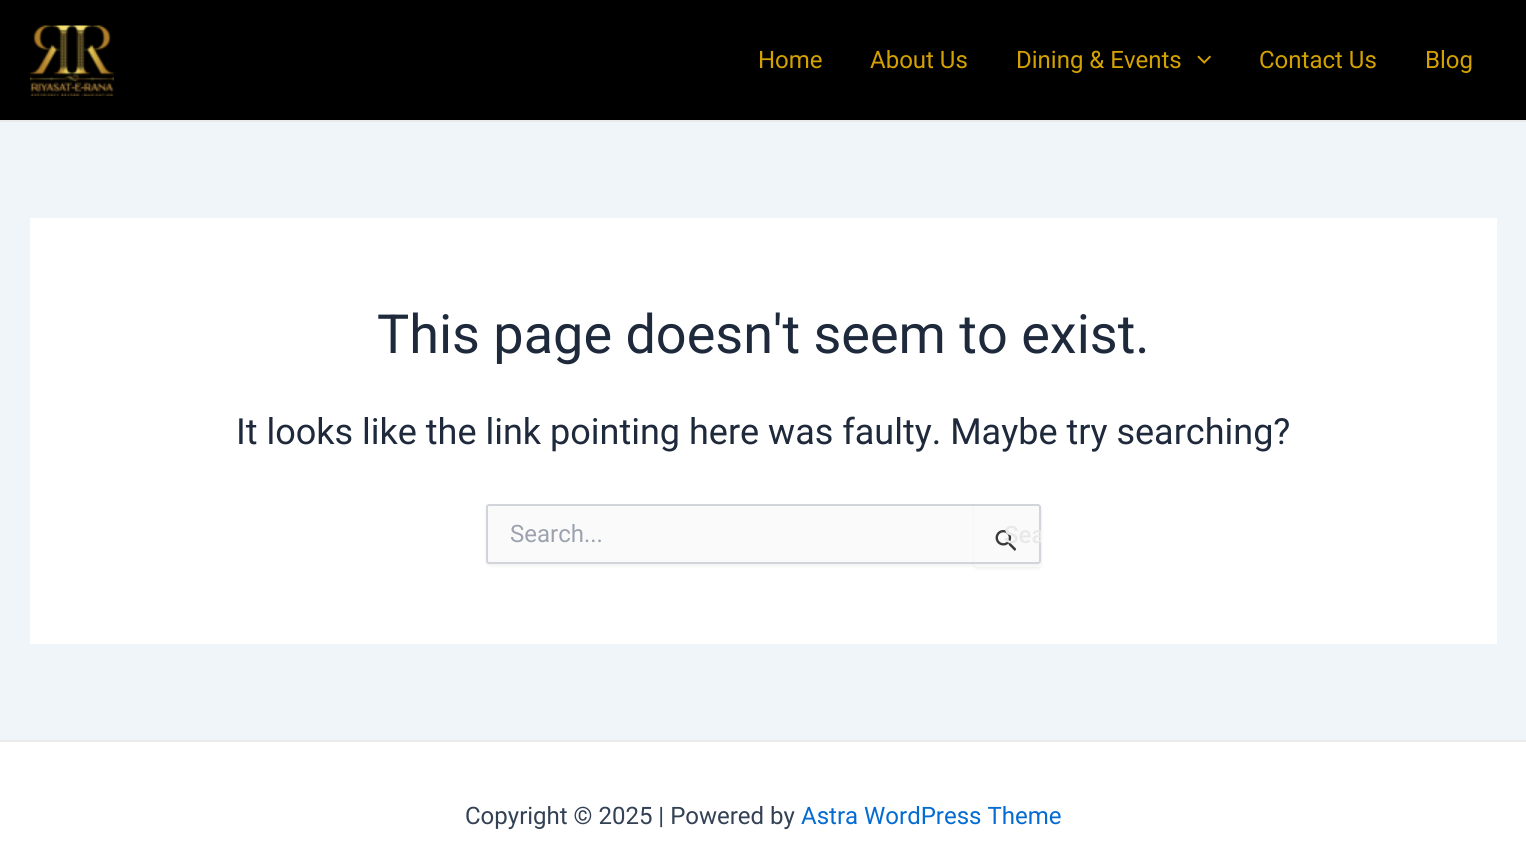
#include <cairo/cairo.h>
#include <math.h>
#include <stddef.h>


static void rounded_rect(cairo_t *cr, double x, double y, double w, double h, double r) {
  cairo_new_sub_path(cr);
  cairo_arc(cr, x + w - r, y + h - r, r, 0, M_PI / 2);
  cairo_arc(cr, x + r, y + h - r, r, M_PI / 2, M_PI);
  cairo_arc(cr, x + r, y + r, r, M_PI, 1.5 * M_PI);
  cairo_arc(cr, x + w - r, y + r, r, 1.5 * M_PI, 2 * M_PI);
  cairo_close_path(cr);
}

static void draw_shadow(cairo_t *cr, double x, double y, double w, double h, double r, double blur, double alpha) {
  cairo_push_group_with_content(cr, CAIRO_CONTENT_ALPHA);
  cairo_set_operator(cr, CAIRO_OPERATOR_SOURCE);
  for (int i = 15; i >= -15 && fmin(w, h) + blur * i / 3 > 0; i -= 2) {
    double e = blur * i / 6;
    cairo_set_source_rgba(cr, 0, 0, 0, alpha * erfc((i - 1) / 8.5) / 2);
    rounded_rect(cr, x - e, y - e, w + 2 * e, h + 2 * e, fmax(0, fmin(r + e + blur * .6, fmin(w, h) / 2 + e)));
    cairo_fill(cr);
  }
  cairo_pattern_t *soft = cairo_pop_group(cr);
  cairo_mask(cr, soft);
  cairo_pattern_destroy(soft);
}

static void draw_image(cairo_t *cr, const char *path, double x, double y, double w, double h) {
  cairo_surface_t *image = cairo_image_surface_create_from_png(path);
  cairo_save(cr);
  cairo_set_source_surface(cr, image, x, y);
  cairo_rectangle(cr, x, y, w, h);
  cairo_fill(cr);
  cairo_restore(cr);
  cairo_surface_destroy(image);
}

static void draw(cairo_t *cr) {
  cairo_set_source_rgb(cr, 240 / 255.0, 245 / 255.0, 250 / 255.0);
  cairo_paint(cr);
  cairo_set_source_rgb(cr, 0, 0, 0);
  cairo_rectangle(cr, 0, 0, 1526, 120);
  cairo_fill(cr);
  cairo_set_source_rgb(cr, 234 / 255.0, 234 / 255.0, 234 / 255.0);
  cairo_rectangle(cr, 0, 120, 1526, 2);
  cairo_fill(cr);
  draw_image(cr, "images/1.png", 30, 25, 84, 71);
  draw_image(cr, "images/2.png", 1197, 55, 14, 9);
  cairo_set_source_rgb(cr, 1, 1, 1);
  cairo_rectangle(cr, 30, 218, 1467, 426);
  cairo_fill(cr);
  cairo_set_source_rgb(cr, 0, 0, 0);
  draw_shadow(cr, 486, 506, 555, 60, 3, 1.5, 0.05);
  cairo_set_source_rgb(cr, 250 / 255.0, 250 / 255.0, 250 / 255.0);
  rounded_rect(cr, 487, 505, 553, 58, 2);
  cairo_fill_preserve(cr);
  cairo_set_source_rgb(cr, 209 / 255.0, 213 / 255.0, 219 / 255.0);
  cairo_stroke(cr);
  draw_image(cr, "images/3.png", 995, 530, 21, 21);
  cairo_save(cr);
  cairo_set_fill_rule(cr, CAIRO_FILL_RULE_EVEN_ODD);
  cairo_new_path(cr);
  cairo_move_to(cr, 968, 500);
  cairo_line_to(cr, 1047, 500);
  cairo_line_to(cr, 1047, 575);
  cairo_line_to(cr, 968, 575);
  cairo_close_path(cr);
  cairo_move_to(cr, 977, 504);
  cairo_line_to(cr, 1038, 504);
  cairo_curve_to(cr, 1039.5, 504, 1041, 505.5, 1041, 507);
  cairo_line_to(cr, 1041, 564);
  cairo_curve_to(cr, 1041, 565.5, 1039.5, 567, 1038, 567);
  cairo_line_to(cr, 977, 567);
  cairo_curve_to(cr, 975.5, 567, 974, 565.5, 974, 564);
  cairo_line_to(cr, 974, 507);
  cairo_curve_to(cr, 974, 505.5, 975.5, 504, 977, 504);
  cairo_close_path(cr);
  cairo_clip(cr);
  cairo_set_source_rgb(cr, 0, 0, 0);
  draw_shadow(cr, 974, 506, 67, 63, 3, 1.5, 0.05);
  cairo_restore(cr);
  cairo_set_source_rgb(cr, 1, 1, 1);
  cairo_rectangle(cr, 0, 742, 1526, 109);
  cairo_fill(cr);
  cairo_set_source_rgb(cr, 234 / 255.0, 234 / 255.0, 234 / 255.0);
  cairo_rectangle(cr, 0, 740, 1526, 2);
  cairo_fill(cr);
  cairo_select_font_face(cr, "Roboto", CAIRO_FONT_SLANT_NORMAL, CAIRO_FONT_WEIGHT_NORMAL);
  cairo_set_font_size(cr, 24);
  cairo_set_source_rgb(cr, 212 / 255.0, 162 / 255.0, 0);
  cairo_move_to(cr, 758, 68);
  cairo_show_text(cr, "Home");
  cairo_move_to(cr, 870, 68);
  cairo_show_text(cr, "About Us");
  cairo_move_to(cr, 1016, 68);
  cairo_show_text(cr, "Dining & Events");
  cairo_move_to(cr, 1259, 68);
  cairo_show_text(cr, "Contact Us");
  cairo_move_to(cr, 1425, 68);
  cairo_show_text(cr, "Blog");
  cairo_set_font_size(cr, 54);
  cairo_set_source_rgb(cr, 30 / 255.0, 41 / 255.0, 59 / 255.0);
  cairo_move_to(cr, 377, 353);
  cairo_show_text(cr, "This page doesn't seem to exist.");
  cairo_set_font_size(cr, 36);
  cairo_move_to(cr, 236, 444);
  cairo_show_text(cr, "It looks like the link pointing here was faulty. Maybe try searching?");
  cairo_set_font_size(cr, 24);
  cairo_set_source_rgb(cr, 156 / 255.0, 163 / 255.0, 175 / 255.0);
  cairo_move_to(cr, 510, 542);
  cairo_show_text(cr, "Search...");
  cairo_save(cr);
  rounded_rect(cr, 974, 504, 67, 63, 3);
  cairo_clip(cr);
  cairo_select_font_face(cr, "Roboto Medium", CAIRO_FONT_SLANT_NORMAL, CAIRO_FONT_WEIGHT_NORMAL);
  cairo_set_source_rgb(cr, 233 / 255.0, 233 / 255.0, 234 / 255.0);
  cairo_move_to(cr, 1004, 543);
  cairo_show_text(cr, "Sea");
  cairo_restore(cr);
  cairo_set_source_rgb(cr, 51 / 255.0, 65 / 255.0, 85 / 255.0);
  cairo_move_to(cr, 465, 824);
  cairo_show_text(cr, "Copyright © 2025 | Powered by");
  cairo_set_source_rgb(cr, 4 / 255.0, 107 / 255.0, 210 / 255.0);
  cairo_move_to(cr, 801, 824);
  cairo_show_text(cr, "Astra WordPress Theme");
}

int main(void) {
  cairo_surface_t *surface = cairo_image_surface_create(CAIRO_FORMAT_RGB24, 1526, 851);
  cairo_t *cr = cairo_create(surface);
  cairo_font_options_t *options = cairo_font_options_create();
  cairo_font_options_set_hint_metrics(options, CAIRO_HINT_METRICS_OFF);
  cairo_font_options_set_hint_style(options, CAIRO_HINT_STYLE_NONE);
  cairo_set_font_options(cr, options);
  cairo_set_miter_limit(cr, 4);
  draw(cr);
  cairo_surface_write_to_png(surface, "out.png");
  cairo_font_options_destroy(options);
  cairo_destroy(cr);
  cairo_surface_destroy(surface);
  return 0;
}
